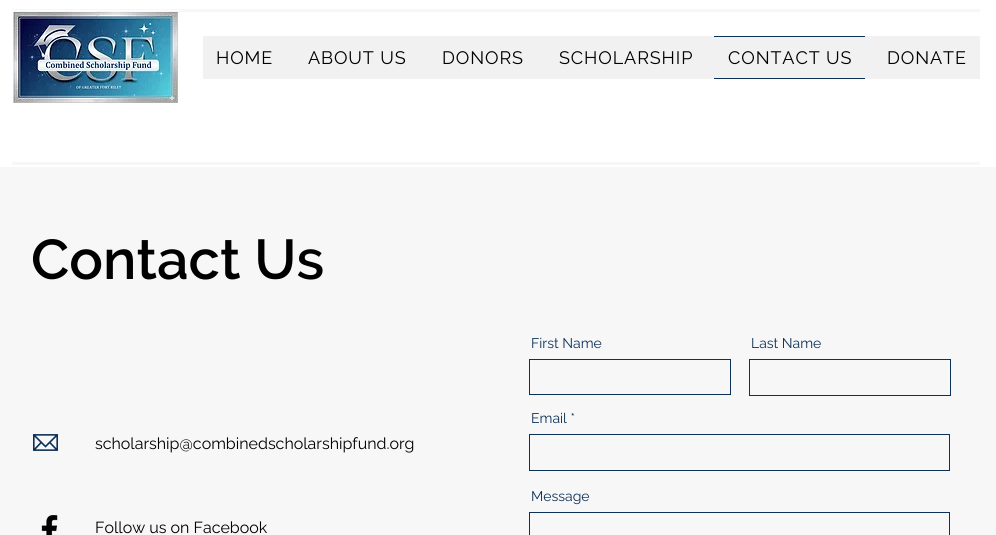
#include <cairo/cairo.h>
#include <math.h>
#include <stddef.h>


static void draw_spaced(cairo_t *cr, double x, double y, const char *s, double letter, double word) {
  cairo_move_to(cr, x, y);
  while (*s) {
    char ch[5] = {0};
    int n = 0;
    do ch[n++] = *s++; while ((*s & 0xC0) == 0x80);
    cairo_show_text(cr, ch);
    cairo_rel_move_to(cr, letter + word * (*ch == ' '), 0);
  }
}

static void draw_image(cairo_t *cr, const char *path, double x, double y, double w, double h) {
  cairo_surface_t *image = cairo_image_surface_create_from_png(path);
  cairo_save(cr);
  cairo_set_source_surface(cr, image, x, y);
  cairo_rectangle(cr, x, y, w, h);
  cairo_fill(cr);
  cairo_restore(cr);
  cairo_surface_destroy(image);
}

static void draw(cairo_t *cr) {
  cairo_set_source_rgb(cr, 1, 1, 1);
  cairo_paint(cr);
  cairo_set_source_rgb(cr, 247 / 255.0, 247 / 255.0, 247 / 255.0);
  cairo_rectangle(cr, 12, 9, 968, 3);
  cairo_fill(cr);
  draw_image(cr, "images/1.png", 12, 10, 167, 94);
  cairo_set_source_rgb(cr, 241 / 255.0, 241 / 255.0, 241 / 255.0);
  cairo_rectangle(cr, 203, 36, 777, 43);
  cairo_fill(cr);
  cairo_set_source_rgb(cr, 12 / 255.0, 49 / 255.0, 87 / 255.0);
  cairo_rectangle(cr, 714, 36, 151, 1);
  cairo_fill(cr);
  cairo_rectangle(cr, 714, 78, 151, 1);
  cairo_fill(cr);
  cairo_set_source_rgb(cr, 247 / 255.0, 247 / 255.0, 247 / 255.0);
  cairo_rectangle(cr, 12, 162, 968, 3);
  cairo_fill(cr);
  cairo_rectangle(cr, 0, 167, 996, 368);
  cairo_fill(cr);
  draw_image(cr, "images/2.png", 33, 434, 25, 17);
  cairo_rectangle(cr, 529.5, 359.5, 201, 35);
  cairo_set_source_rgb(cr, 12 / 255.0, 49 / 255.0, 87 / 255.0);
  cairo_set_line_width(cr, 1);
  cairo_stroke(cr);
  cairo_rectangle(cr, 749.5, 359.5, 201, 36);
  cairo_stroke(cr);
  cairo_rectangle(cr, 529.5, 434.5, 420, 36);
  cairo_stroke(cr);
  cairo_rectangle(cr, 529.5, 512.5, 420, 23);
  cairo_stroke(cr);
  draw_image(cr, "images/3.png", 41, 515, 17, 20);
  cairo_select_font_face(cr, "Raleway", CAIRO_FONT_SLANT_NORMAL, CAIRO_FONT_WEIGHT_NORMAL);
  cairo_set_font_size(cr, 18);
  cairo_set_source_rgb(cr, 0, 0, 0);
  draw_spaced(cr, 216, 64, "HOME", 0.9, 0);
  draw_spaced(cr, 308, 64, "ABOUT US", 0.9, 0);
  draw_spaced(cr, 442, 64, "DONORS", 0.9, 0);
  draw_spaced(cr, 559, 64, "SCHOLARSHIP", 0.9, 0);
  draw_spaced(cr, 728, 64, "CONTACT US", 0.9, 0);
  draw_spaced(cr, 887, 64, "DONATE", 0.9, 0);
  cairo_select_font_face(cr, "Raleway SemiBold", CAIRO_FONT_SLANT_NORMAL, CAIRO_FONT_WEIGHT_NORMAL);
  cairo_set_font_size(cr, 56);
  cairo_move_to(cr, 31, 279);
  cairo_show_text(cr, "Contact Us");
  cairo_select_font_face(cr, "Raleway", CAIRO_FONT_SLANT_NORMAL, CAIRO_FONT_WEIGHT_NORMAL);
  cairo_set_font_size(cr, 16);
  cairo_move_to(cr, 95, 449);
  cairo_show_text(cr, "scholarship@combinedscholarshipfund.org");
  cairo_set_font_size(cr, 14);
  cairo_set_source_rgb(cr, 12 / 255.0, 49 / 255.0, 87 / 255.0);
  cairo_move_to(cr, 531, 348);
  cairo_show_text(cr, "First Name");
  cairo_move_to(cr, 751, 348);
  cairo_show_text(cr, "Last Name");
  cairo_move_to(cr, 531, 423);
  cairo_show_text(cr, "Email *");
  cairo_move_to(cr, 531, 501);
  cairo_show_text(cr, "Message");
  cairo_set_font_size(cr, 16);
  cairo_set_source_rgb(cr, 0, 0, 0);
  cairo_move_to(cr, 95, 533);
  cairo_show_text(cr, "Follow us on Facebook");
}

int main(void) {
  cairo_surface_t *surface = cairo_image_surface_create(CAIRO_FORMAT_RGB24, 996, 535);
  cairo_t *cr = cairo_create(surface);
  cairo_font_options_t *options = cairo_font_options_create();
  cairo_font_options_set_hint_metrics(options, CAIRO_HINT_METRICS_OFF);
  cairo_font_options_set_hint_style(options, CAIRO_HINT_STYLE_NONE);
  cairo_set_font_options(cr, options);
  cairo_set_miter_limit(cr, 4);
  draw(cr);
  cairo_surface_write_to_png(surface, "out.png");
  cairo_font_options_destroy(options);
  cairo_destroy(cr);
  cairo_surface_destroy(surface);
  return 0;
}
